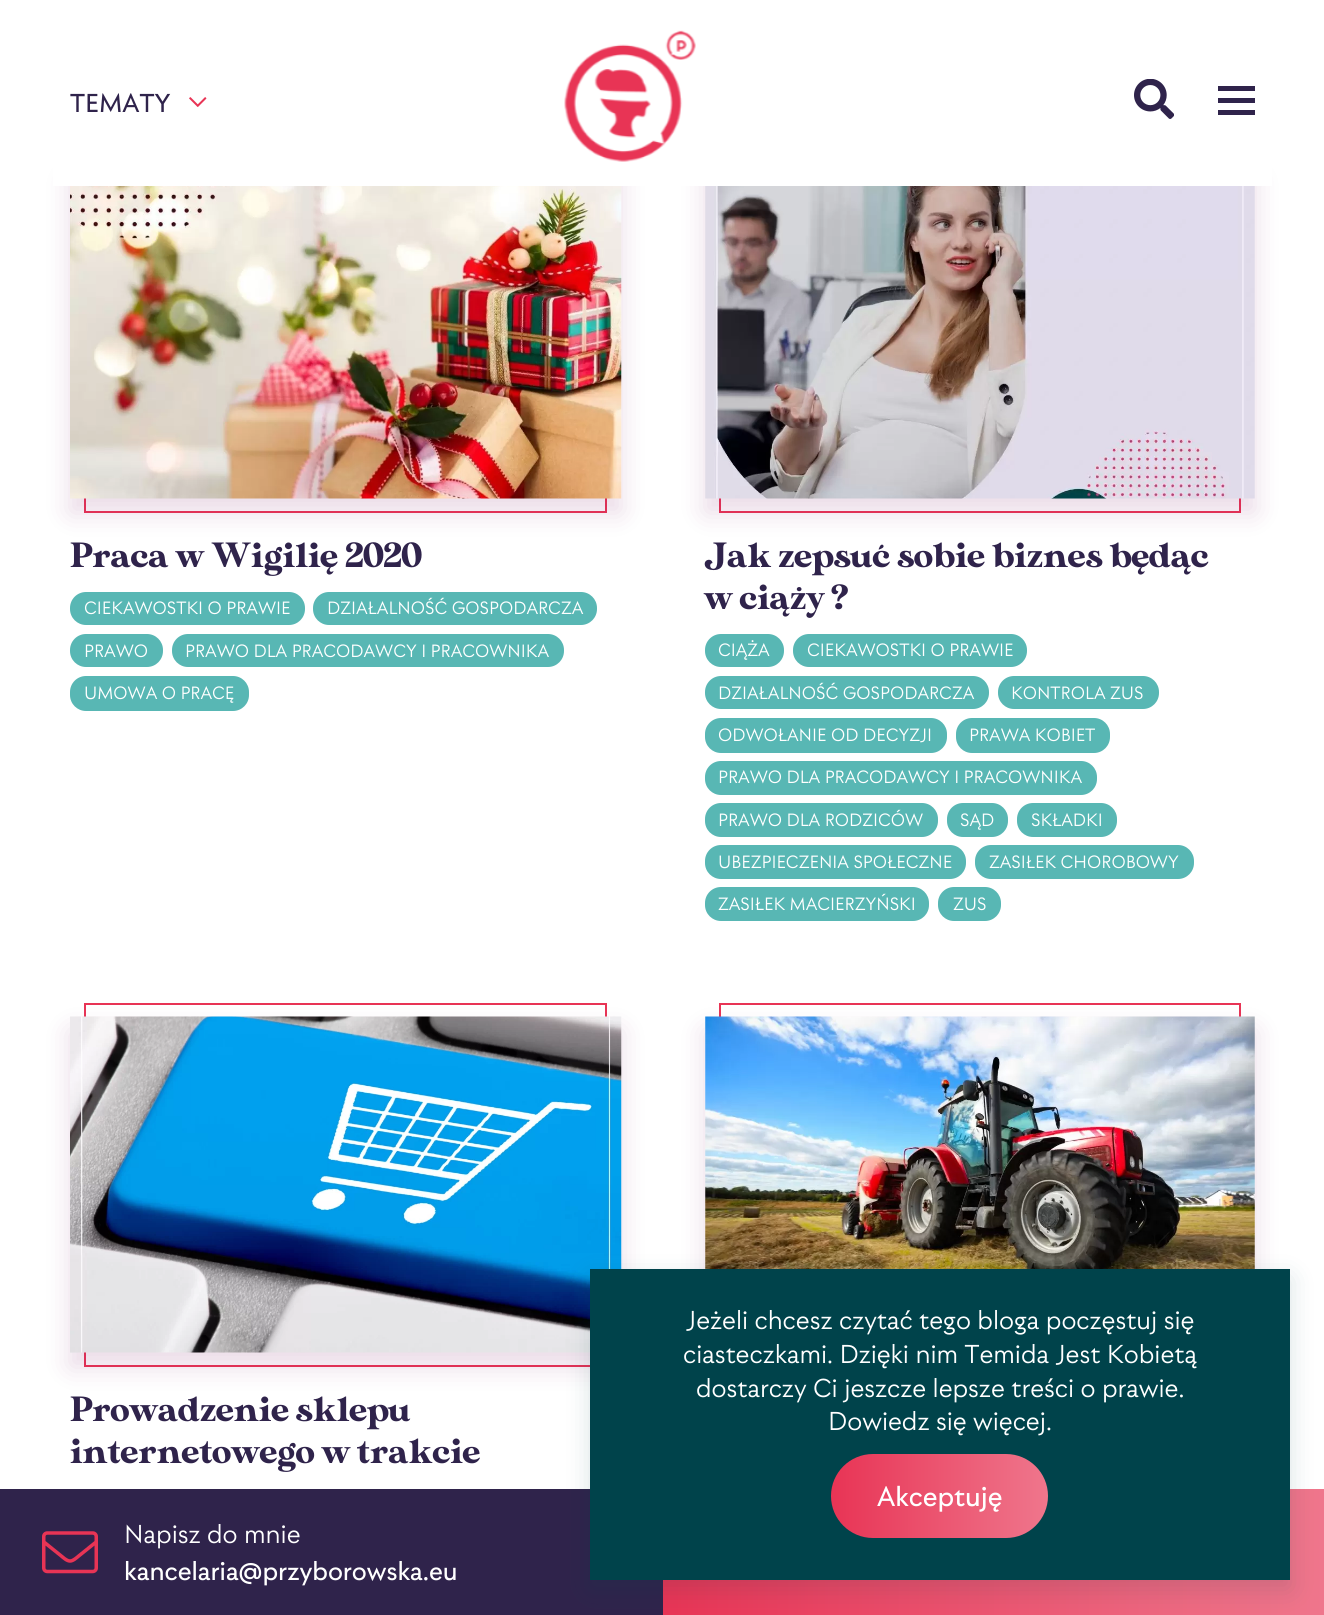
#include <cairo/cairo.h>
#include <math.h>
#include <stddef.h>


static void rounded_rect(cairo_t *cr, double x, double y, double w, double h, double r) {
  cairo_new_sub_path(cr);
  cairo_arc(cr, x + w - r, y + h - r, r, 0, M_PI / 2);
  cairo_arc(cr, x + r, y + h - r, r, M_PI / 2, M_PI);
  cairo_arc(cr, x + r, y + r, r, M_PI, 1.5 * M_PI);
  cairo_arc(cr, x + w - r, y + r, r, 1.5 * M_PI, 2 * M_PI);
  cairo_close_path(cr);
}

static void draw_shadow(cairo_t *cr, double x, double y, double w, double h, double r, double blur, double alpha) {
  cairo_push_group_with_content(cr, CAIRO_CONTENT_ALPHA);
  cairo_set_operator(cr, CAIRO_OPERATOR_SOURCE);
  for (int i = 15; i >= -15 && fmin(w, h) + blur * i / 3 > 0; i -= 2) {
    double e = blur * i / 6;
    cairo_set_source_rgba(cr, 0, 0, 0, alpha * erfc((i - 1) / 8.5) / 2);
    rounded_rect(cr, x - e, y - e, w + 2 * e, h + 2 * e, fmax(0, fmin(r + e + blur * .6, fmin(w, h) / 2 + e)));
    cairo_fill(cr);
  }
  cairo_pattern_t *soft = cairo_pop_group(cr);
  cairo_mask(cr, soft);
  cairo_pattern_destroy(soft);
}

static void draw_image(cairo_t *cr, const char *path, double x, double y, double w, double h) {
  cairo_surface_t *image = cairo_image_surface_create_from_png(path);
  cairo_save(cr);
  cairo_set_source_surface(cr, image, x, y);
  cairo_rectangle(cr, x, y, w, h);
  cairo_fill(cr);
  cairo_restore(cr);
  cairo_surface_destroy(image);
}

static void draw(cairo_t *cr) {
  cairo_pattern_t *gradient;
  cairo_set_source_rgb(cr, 1, 1, 1);
  cairo_paint(cr);
  cairo_rectangle(cr, 85, 152, 521, 360);
  cairo_set_source_rgb(cr, 232 / 255.0, 52 / 255.0, 85 / 255.0);
  cairo_stroke(cr);
  cairo_set_source_rgb(cr, 116 / 255.0, 12 / 255.0, 95 / 255.0);
  draw_shadow(cr, 70, 179, 551, 334, 0, 13, 0.15);
  cairo_rectangle(cr, 720, 152, 520, 360);
  cairo_set_source_rgb(cr, 232 / 255.0, 52 / 255.0, 85 / 255.0);
  cairo_stroke(cr);
  cairo_set_source_rgb(cr, 116 / 255.0, 12 / 255.0, 95 / 255.0);
  draw_shadow(cr, 705, 179, 550, 334, 0, 13, 0.15);
  cairo_set_source_rgb(cr, 1, 1, 1);
  cairo_rectangle(cr, 53, 151, 1219, 35);
  cairo_fill(cr);
  draw_image(cr, "images/1.png", 189, 97, 18, 10);
  draw_image(cr, "images/2.png", 564, 30, 132, 132);
  draw_image(cr, "images/3.png", 1134, 79, 40, 40);
  cairo_set_source_rgb(cr, 47 / 255.0, 35 / 255.0, 75 / 255.0);
  cairo_rectangle(cr, 1218, 98, 37, 5);
  cairo_fill(cr);
  cairo_rectangle(cr, 1218, 86, 37, 5);
  cairo_fill(cr);
  cairo_rectangle(cr, 1218, 110, 37, 5);
  cairo_fill(cr);
  draw_image(cr, "images/4.png", 70, 186, 552, 313);
  cairo_set_source_rgb(cr, 88 / 255.0, 183 / 255.0, 180 / 255.0);
  rounded_rect(cr, 70, 592, 235, 33, 16);
  cairo_fill(cr);
  rounded_rect(cr, 313, 592, 284, 33, 16);
  cairo_fill(cr);
  rounded_rect(cr, 70, 634, 93, 33, 16);
  cairo_fill(cr);
  rounded_rect(cr, 172, 634, 392, 33, 16);
  cairo_fill(cr);
  rounded_rect(cr, 70, 676, 179, 35, 16);
  cairo_fill(cr);
  draw_image(cr, "images/5.png", 705, 186, 550, 313);
  rounded_rect(cr, 705, 634, 79, 33, 16);
  cairo_fill(cr);
  rounded_rect(cr, 793, 634, 234, 33, 16);
  cairo_fill(cr);
  rounded_rect(cr, 705, 676, 284, 33, 16);
  cairo_fill(cr);
  rounded_rect(cr, 998, 676, 161, 33, 16);
  cairo_fill(cr);
  rounded_rect(cr, 705, 718, 242, 35, 16);
  cairo_fill(cr);
  rounded_rect(cr, 956, 718, 154, 35, 16);
  cairo_fill(cr);
  rounded_rect(cr, 705, 761, 392, 34, 16);
  cairo_fill(cr);
  rounded_rect(cr, 705, 803, 233, 34, 16);
  cairo_fill(cr);
  rounded_rect(cr, 947, 803, 61, 34, 16);
  cairo_fill(cr);
  rounded_rect(cr, 1017, 803, 100, 34, 16);
  cairo_fill(cr);
  rounded_rect(cr, 705, 845, 261, 34, 16);
  cairo_fill(cr);
  rounded_rect(cr, 975, 845, 219, 34, 16);
  cairo_fill(cr);
  rounded_rect(cr, 705, 887, 224, 34, 16);
  cairo_fill(cr);
  rounded_rect(cr, 938, 887, 63, 34, 16);
  cairo_fill(cr);
  cairo_rectangle(cr, 720, 1004, 520, 362);
  cairo_set_source_rgb(cr, 232 / 255.0, 52 / 255.0, 85 / 255.0);
  cairo_stroke(cr);
  cairo_set_source_rgb(cr, 116 / 255.0, 12 / 255.0, 95 / 255.0);
  draw_shadow(cr, 705, 1031, 550, 336, 0, 13, 0.15);
  draw_image(cr, "images/6.png", 705, 1016, 550, 253);
  cairo_rectangle(cr, 85, 1004, 521, 362);
  cairo_set_source_rgb(cr, 232 / 255.0, 52 / 255.0, 85 / 255.0);
  cairo_stroke(cr);
  cairo_set_source_rgb(cr, 116 / 255.0, 12 / 255.0, 95 / 255.0);
  draw_shadow(cr, 70, 1031, 551, 336, 0, 13, 0.15);
  draw_image(cr, "images/7.png", 70, 1016, 552, 337);
  cairo_set_source_rgb(cr, 47 / 255.0, 35 / 255.0, 75 / 255.0);
  cairo_rectangle(cr, 0, 1489, 663, 126);
  cairo_fill(cr);
  gradient = cairo_pattern_create_linear(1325, 1552, 663, 1552);
  cairo_pattern_add_color_stop_rgba(gradient, 0, 239 / 255.0, 118 / 255.0, 140 / 255.0, 1);
  cairo_pattern_add_color_stop_rgba(gradient, 1, 232 / 255.0, 52 / 255.0, 85 / 255.0, 1);
  cairo_set_source(cr, gradient);
  cairo_pattern_destroy(gradient);
  cairo_rectangle(cr, 663, 1489, 661, 126);
  cairo_fill(cr);
  cairo_set_source_rgb(cr, 0, 67 / 255.0, 75 / 255.0);
  draw_shadow(cr, 590, 1278, 700, 311, 0, 13, 0.15);
  cairo_set_source_rgb(cr, 0, 67 / 255.0, 75 / 255.0);
  cairo_rectangle(cr, 590, 1269, 700, 311);
  cairo_fill(cr);
  gradient = cairo_pattern_create_linear(1048, 1496, 831, 1496);
  cairo_pattern_add_color_stop_rgba(gradient, 0, 239 / 255.0, 118 / 255.0, 140 / 255.0, 1);
  cairo_pattern_add_color_stop_rgba(gradient, 1, 232 / 255.0, 52 / 255.0, 85 / 255.0, 1);
  cairo_set_source(cr, gradient);
  cairo_pattern_destroy(gradient);
  rounded_rect(cr, 831, 1454, 217, 84, 42);
  cairo_fill(cr);
  draw_image(cr, "images/8.png", 42, 1531, 56, 43);
  cairo_select_font_face(cr, "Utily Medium", CAIRO_FONT_SLANT_NORMAL, CAIRO_FONT_WEIGHT_NORMAL);
  cairo_set_font_size(cr, 28);
  cairo_set_source_rgb(cr, 47 / 255.0, 35 / 255.0, 75 / 255.0);
  cairo_move_to(cr, 70, 112);
  cairo_show_text(cr, "TEMATY");
  cairo_select_font_face(cr, "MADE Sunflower", CAIRO_FONT_SLANT_NORMAL, CAIRO_FONT_WEIGHT_NORMAL);
  cairo_set_font_size(cr, 35);
  cairo_move_to(cr, 70, 567);
  cairo_show_text(cr, "Praca w Wigilię 2020");
  cairo_select_font_face(cr, "Utily", CAIRO_FONT_SLANT_NORMAL, CAIRO_FONT_WEIGHT_NORMAL);
  cairo_set_font_size(cr, 19.25);
  cairo_set_source_rgb(cr, 1, 1, 1);
  cairo_move_to(cr, 84, 614);
  cairo_show_text(cr, "CIEKAWOSTKI O PRAWIE");
  cairo_move_to(cr, 327, 614);
  cairo_show_text(cr, "DZIAŁALNOŚĆ GOSPODARCZA");
  cairo_move_to(cr, 84, 657);
  cairo_show_text(cr, "PRAWO");
  cairo_move_to(cr, 185, 657);
  cairo_show_text(cr, "PRAWO DLA PRACODAWCY I PRACOWNIKA");
  cairo_move_to(cr, 84, 699);
  cairo_show_text(cr, "UMOWA O PRACĘ");
  cairo_select_font_face(cr, "MADE Sunflower", CAIRO_FONT_SLANT_NORMAL, CAIRO_FONT_WEIGHT_NORMAL);
  cairo_set_font_size(cr, 35);
  cairo_set_source_rgb(cr, 47 / 255.0, 35 / 255.0, 75 / 255.0);
  cairo_move_to(cr, 704, 567);
  cairo_show_text(cr, "Jak zepsuć sobie biznes będąc");
  cairo_move_to(cr, 704, 609);
  cairo_show_text(cr, "w ciąży ?");
  cairo_select_font_face(cr, "Utily", CAIRO_FONT_SLANT_NORMAL, CAIRO_FONT_WEIGHT_NORMAL);
  cairo_set_font_size(cr, 19.25);
  cairo_set_source_rgb(cr, 1, 1, 1);
  cairo_move_to(cr, 718, 656);
  cairo_show_text(cr, "CIĄŻA");
  cairo_move_to(cr, 807, 656);
  cairo_show_text(cr, "CIEKAWOSTKI O PRAWIE");
  cairo_move_to(cr, 718, 699);
  cairo_show_text(cr, "DZIAŁALNOŚĆ GOSPODARCZA");
  cairo_move_to(cr, 1011, 699);
  cairo_show_text(cr, "KONTROLA ZUS");
  cairo_move_to(cr, 718, 741);
  cairo_show_text(cr, "ODWOŁANIE OD DECYZJI");
  cairo_move_to(cr, 969, 741);
  cairo_show_text(cr, "PRAWA KOBIET");
  cairo_move_to(cr, 718, 783);
  cairo_show_text(cr, "PRAWO DLA PRACODAWCY I PRACOWNIKA");
  cairo_move_to(cr, 718, 826);
  cairo_show_text(cr, "PRAWO DLA RODZICÓW");
  cairo_move_to(cr, 960, 826);
  cairo_show_text(cr, "SĄD");
  cairo_move_to(cr, 1031, 826);
  cairo_show_text(cr, "SKŁADKI");
  cairo_move_to(cr, 718, 868);
  cairo_show_text(cr, "UBEZPIECZENIA SPOŁECZNE");
  cairo_move_to(cr, 989, 868);
  cairo_show_text(cr, "ZASIŁEK CHOROBOWY");
  cairo_move_to(cr, 718, 910);
  cairo_show_text(cr, "ZASIŁEK MACIERZYŃSKI");
  cairo_move_to(cr, 953, 910);
  cairo_show_text(cr, "ZUS");
  cairo_select_font_face(cr, "MADE Sunflower", CAIRO_FONT_SLANT_NORMAL, CAIRO_FONT_WEIGHT_NORMAL);
  cairo_set_font_size(cr, 35);
  cairo_set_source_rgb(cr, 47 / 255.0, 35 / 255.0, 75 / 255.0);
  cairo_move_to(cr, 70, 1421);
  cairo_show_text(cr, "Prowadzenie sklepu");
  cairo_move_to(cr, 70, 1463);
  cairo_show_text(cr, "internetowego w trakcie");
  cairo_select_font_face(cr, "Utily", CAIRO_FONT_SLANT_NORMAL, CAIRO_FONT_WEIGHT_NORMAL);
  cairo_set_font_size(cr, 28);
  cairo_set_source_rgb(cr, 1, 1, 1);
  cairo_move_to(cr, 686, 1329);
  cairo_show_text(cr, "Jeżeli chcesz czytać tego bloga poczęstuj się");
  cairo_move_to(cr, 683, 1363);
  cairo_show_text(cr, "ciasteczkami. Dzięki nim Temida Jest Kobietą");
  cairo_move_to(cr, 696, 1397);
  cairo_show_text(cr, "dostarczy Ci jeszcze lepsze treści o prawie.");
  cairo_move_to(cr, 828, 1430);
  cairo_show_text(cr, "Dowiedz się więcej.");
  cairo_select_font_face(cr, "Utily Medium", CAIRO_FONT_SLANT_NORMAL, CAIRO_FONT_WEIGHT_NORMAL);
  cairo_set_font_size(cr, 29.75);
  cairo_move_to(cr, 877, 1506);
  cairo_show_text(cr, "Akceptuję");
  cairo_select_font_face(cr, "Utily", CAIRO_FONT_SLANT_NORMAL, CAIRO_FONT_WEIGHT_NORMAL);
  cairo_set_font_size(cr, 28);
  cairo_move_to(cr, 124, 1543);
  cairo_show_text(cr, "Napisz do mnie");
  cairo_select_font_face(cr, "Utily Medium", CAIRO_FONT_SLANT_NORMAL, CAIRO_FONT_WEIGHT_NORMAL);
  cairo_move_to(cr, 124, 1580);
  cairo_show_text(cr, "kancelaria@przyborowska.eu");
}

int main(void) {
  cairo_surface_t *surface = cairo_image_surface_create(CAIRO_FORMAT_RGB24, 1324, 1615);
  cairo_t *cr = cairo_create(surface);
  cairo_font_options_t *options = cairo_font_options_create();
  cairo_font_options_set_hint_metrics(options, CAIRO_HINT_METRICS_OFF);
  cairo_font_options_set_hint_style(options, CAIRO_HINT_STYLE_NONE);
  cairo_set_font_options(cr, options);
  cairo_set_miter_limit(cr, 4);
  draw(cr);
  cairo_surface_write_to_png(surface, "out.png");
  cairo_font_options_destroy(options);
  cairo_destroy(cr);
  cairo_surface_destroy(surface);
  return 0;
}
